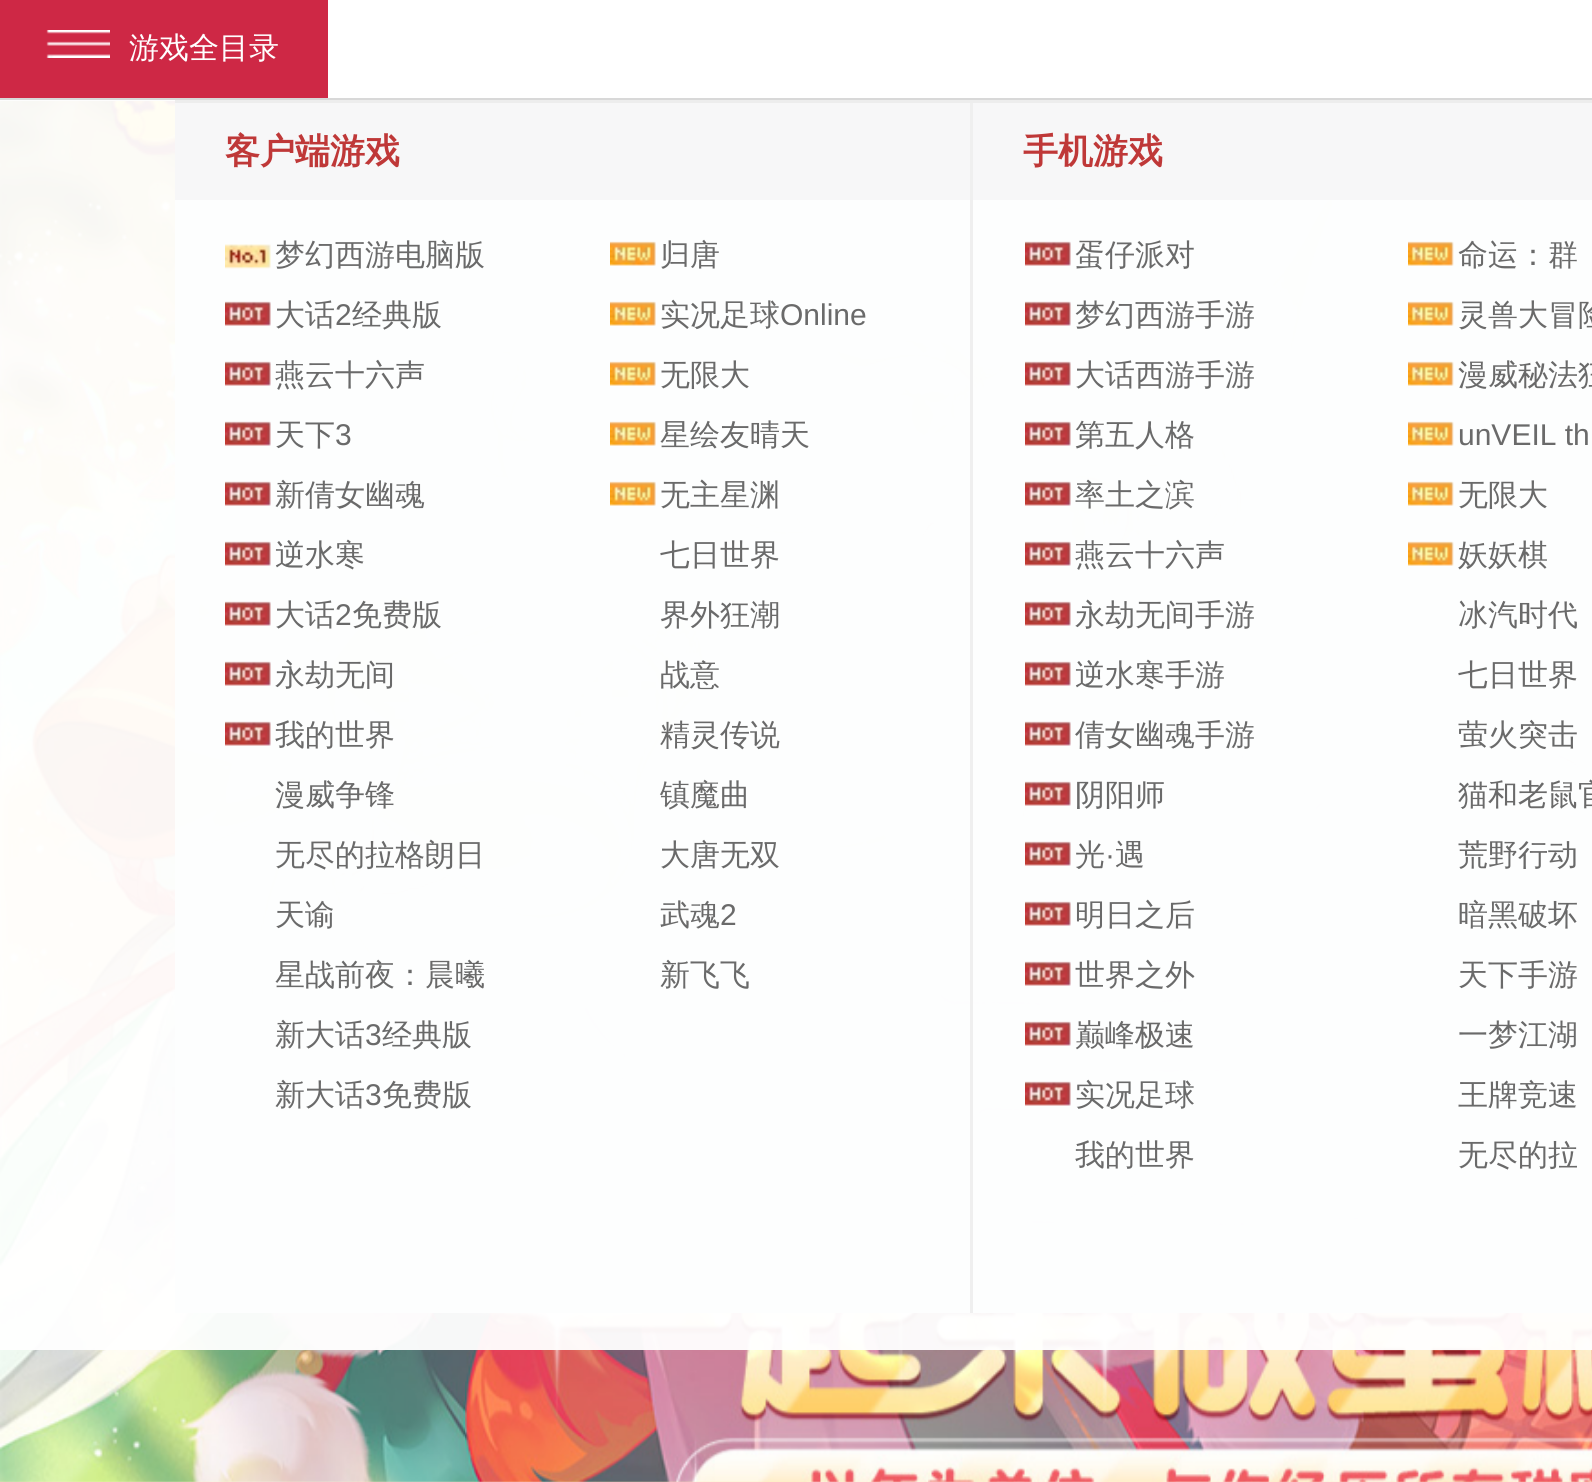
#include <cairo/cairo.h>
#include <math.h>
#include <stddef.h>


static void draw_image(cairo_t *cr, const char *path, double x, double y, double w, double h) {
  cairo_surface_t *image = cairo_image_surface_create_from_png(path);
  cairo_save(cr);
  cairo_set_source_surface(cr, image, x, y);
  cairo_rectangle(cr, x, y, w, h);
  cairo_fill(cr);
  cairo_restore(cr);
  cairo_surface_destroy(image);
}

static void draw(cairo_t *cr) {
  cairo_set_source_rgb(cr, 1, 1, 1);
  cairo_paint(cr);
  draw_image(cr, "images/1.png", 0, 1481, 1592, 1);
  cairo_set_source_rgb(cr, 206 / 255.0, 40 / 255.0, 69 / 255.0);
  cairo_rectangle(cr, 0, 0, 328, 98);
  cairo_fill(cr);
  draw_image(cr, "images/2.png", 46, 30, 64, 28);
  cairo_set_source_rgb(cr, 216 / 255.0, 216 / 255.0, 216 / 255.0);
  cairo_rectangle(cr, 0, 98, 1592, 3);
  cairo_fill(cr);
  draw_image(cr, "images/36.png", 0, 101, 1592, 1381);
  draw_image(cr, "images/37.png", 1463, 200, 129, 261);
  cairo_set_source_rgba(cr, 1, 1, 1, 0.95);
  cairo_rectangle(cr, 0, 100, 1592, 1250);
  cairo_fill(cr);
  cairo_set_source_rgba(cr, 253 / 255.0, 254 / 255.0, 254 / 255.0, 0.95);
  cairo_rectangle(cr, 175, 200, 1417, 1113);
  cairo_fill(cr);
  cairo_set_source_rgb(cr, 237 / 255.0, 237 / 255.0, 237 / 255.0);
  cairo_rectangle(cr, 175, 100, 1417, 3);
  cairo_fill(cr);
  cairo_set_source_rgb(cr, 239 / 255.0, 239 / 255.0, 239 / 255.0);
  cairo_rectangle(cr, 970, 103, 3, 1210);
  cairo_fill(cr);
  cairo_set_source_rgb(cr, 247 / 255.0, 247 / 255.0, 248 / 255.0);
  cairo_rectangle(cr, 175, 103, 795, 97);
  cairo_fill(cr);
  cairo_rectangle(cr, 973, 103, 619, 97);
  cairo_fill(cr);
  draw_image(cr, "images/3.png", 225, 244, 46, 25);
  draw_image(cr, "images/4.png", 225, 301, 46, 25);
  draw_image(cr, "images/5.png", 225, 361, 46, 25);
  draw_image(cr, "images/6.png", 225, 421, 46, 25);
  draw_image(cr, "images/7.png", 225, 481, 46, 25);
  draw_image(cr, "images/8.png", 225, 541, 46, 25);
  draw_image(cr, "images/9.png", 225, 601, 46, 25);
  draw_image(cr, "images/10.png", 225, 661, 46, 25);
  draw_image(cr, "images/11.png", 225, 721, 46, 25);
  draw_image(cr, "images/12.png", 610, 241, 46, 25);
  draw_image(cr, "images/13.png", 610, 301, 46, 25);
  draw_image(cr, "images/14.png", 610, 361, 46, 25);
  draw_image(cr, "images/15.png", 610, 421, 46, 25);
  draw_image(cr, "images/16.png", 610, 481, 46, 25);
  draw_image(cr, "images/17.png", 1025, 241, 46, 25);
  draw_image(cr, "images/18.png", 1025, 301, 46, 25);
  draw_image(cr, "images/19.png", 1025, 361, 46, 25);
  draw_image(cr, "images/20.png", 1025, 421, 46, 25);
  draw_image(cr, "images/21.png", 1025, 481, 46, 25);
  draw_image(cr, "images/22.png", 1025, 541, 46, 25);
  draw_image(cr, "images/23.png", 1025, 601, 46, 25);
  draw_image(cr, "images/24.png", 1025, 661, 46, 25);
  draw_image(cr, "images/25.png", 1025, 721, 46, 25);
  draw_image(cr, "images/26.png", 1025, 781, 46, 25);
  draw_image(cr, "images/27.png", 1025, 841, 46, 25);
  draw_image(cr, "images/28.png", 1025, 901, 46, 25);
  draw_image(cr, "images/29.png", 1025, 961, 46, 25);
  draw_image(cr, "images/30.png", 1025, 1021, 46, 25);
  draw_image(cr, "images/31.png", 1025, 1081, 46, 25);
  draw_image(cr, "images/32.png", 1408, 241, 46, 25);
  draw_image(cr, "images/32.png", 1408, 301, 46, 25);
  draw_image(cr, "images/33.png", 1408, 361, 46, 25);
  draw_image(cr, "images/34.png", 1408, 421, 46, 25);
  draw_image(cr, "images/35.png", 1408, 481, 46, 25);
  draw_image(cr, "images/35.png", 1408, 541, 46, 25);
  cairo_select_font_face(cr, "WenQuanYi Zen Hei Medium", CAIRO_FONT_SLANT_NORMAL, CAIRO_FONT_WEIGHT_NORMAL);
  cairo_set_font_size(cr, 30);
  cairo_set_source_rgb(cr, 1, 1, 1);
  cairo_move_to(cr, 129, 58);
  cairo_show_text(cr, "游戏全目录");
  cairo_select_font_face(cr, "WenQuanYi Zen Hei", CAIRO_FONT_SLANT_NORMAL, CAIRO_FONT_WEIGHT_BOLD);
  cairo_set_font_size(cr, 35);
  cairo_set_source_rgb(cr, 191 / 255.0, 56 / 255.0, 56 / 255.0);
  cairo_move_to(cr, 225, 163);
  cairo_show_text(cr, "客户端游戏");
  cairo_move_to(cr, 1023, 163);
  cairo_show_text(cr, "手机游戏");
  cairo_select_font_face(cr, "WenQuanYi Zen Hei Medium", CAIRO_FONT_SLANT_NORMAL, CAIRO_FONT_WEIGHT_NORMAL);
  cairo_set_font_size(cr, 30);
  cairo_set_source_rgb(cr, 106 / 255.0, 106 / 255.0, 106 / 255.0);
  cairo_move_to(cr, 275, 265);
  cairo_show_text(cr, "梦幻西游电脑版");
  cairo_move_to(cr, 275, 325);
  cairo_show_text(cr, "大话");
  cairo_select_font_face(cr, "Liberation Sans", CAIRO_FONT_SLANT_NORMAL, CAIRO_FONT_WEIGHT_NORMAL);
  cairo_move_to(cr, 335, 325);
  cairo_show_text(cr, "2");
  cairo_select_font_face(cr, "WenQuanYi Zen Hei Medium", CAIRO_FONT_SLANT_NORMAL, CAIRO_FONT_WEIGHT_NORMAL);
  cairo_move_to(cr, 352, 325);
  cairo_show_text(cr, "经典版");
  cairo_move_to(cr, 275, 385);
  cairo_show_text(cr, "燕云十六声");
  cairo_move_to(cr, 275, 445);
  cairo_show_text(cr, "天下");
  cairo_select_font_face(cr, "Liberation Sans", CAIRO_FONT_SLANT_NORMAL, CAIRO_FONT_WEIGHT_NORMAL);
  cairo_move_to(cr, 335, 445);
  cairo_show_text(cr, "3");
  cairo_select_font_face(cr, "WenQuanYi Zen Hei Medium", CAIRO_FONT_SLANT_NORMAL, CAIRO_FONT_WEIGHT_NORMAL);
  cairo_move_to(cr, 275, 505);
  cairo_show_text(cr, "新倩女幽魂");
  cairo_move_to(cr, 275, 565);
  cairo_show_text(cr, "逆水寒");
  cairo_move_to(cr, 275, 625);
  cairo_show_text(cr, "大话");
  cairo_select_font_face(cr, "Liberation Sans", CAIRO_FONT_SLANT_NORMAL, CAIRO_FONT_WEIGHT_NORMAL);
  cairo_move_to(cr, 335, 625);
  cairo_show_text(cr, "2");
  cairo_select_font_face(cr, "WenQuanYi Zen Hei Medium", CAIRO_FONT_SLANT_NORMAL, CAIRO_FONT_WEIGHT_NORMAL);
  cairo_move_to(cr, 352, 625);
  cairo_show_text(cr, "免费版");
  cairo_move_to(cr, 275, 685);
  cairo_show_text(cr, "永劫无间");
  cairo_move_to(cr, 275, 745);
  cairo_show_text(cr, "我的世界");
  cairo_move_to(cr, 275, 805);
  cairo_show_text(cr, "漫威争锋");
  cairo_move_to(cr, 275, 865);
  cairo_show_text(cr, "无尽的拉格朗日");
  cairo_move_to(cr, 275, 925);
  cairo_show_text(cr, "天谕");
  cairo_move_to(cr, 275, 985);
  cairo_show_text(cr, "星战前夜：晨曦");
  cairo_move_to(cr, 275, 1045);
  cairo_show_text(cr, "新大话");
  cairo_select_font_face(cr, "Liberation Sans", CAIRO_FONT_SLANT_NORMAL, CAIRO_FONT_WEIGHT_NORMAL);
  cairo_move_to(cr, 365, 1045);
  cairo_show_text(cr, "3");
  cairo_select_font_face(cr, "WenQuanYi Zen Hei Medium", CAIRO_FONT_SLANT_NORMAL, CAIRO_FONT_WEIGHT_NORMAL);
  cairo_move_to(cr, 382, 1045);
  cairo_show_text(cr, "经典版");
  cairo_move_to(cr, 275, 1105);
  cairo_show_text(cr, "新大话");
  cairo_select_font_face(cr, "Liberation Sans", CAIRO_FONT_SLANT_NORMAL, CAIRO_FONT_WEIGHT_NORMAL);
  cairo_move_to(cr, 365, 1105);
  cairo_show_text(cr, "3");
  cairo_select_font_face(cr, "WenQuanYi Zen Hei Medium", CAIRO_FONT_SLANT_NORMAL, CAIRO_FONT_WEIGHT_NORMAL);
  cairo_move_to(cr, 382, 1105);
  cairo_show_text(cr, "免费版");
  cairo_move_to(cr, 660, 265);
  cairo_show_text(cr, "归唐");
  cairo_move_to(cr, 660, 325);
  cairo_show_text(cr, "实况足球");
  cairo_select_font_face(cr, "Liberation Sans", CAIRO_FONT_SLANT_NORMAL, CAIRO_FONT_WEIGHT_NORMAL);
  cairo_move_to(cr, 780, 325);
  cairo_show_text(cr, "Online");
  cairo_select_font_face(cr, "WenQuanYi Zen Hei Medium", CAIRO_FONT_SLANT_NORMAL, CAIRO_FONT_WEIGHT_NORMAL);
  cairo_move_to(cr, 660, 385);
  cairo_show_text(cr, "无限大");
  cairo_move_to(cr, 660, 445);
  cairo_show_text(cr, "星绘友晴天");
  cairo_move_to(cr, 660, 505);
  cairo_show_text(cr, "无主星渊");
  cairo_move_to(cr, 660, 565);
  cairo_show_text(cr, "七日世界");
  cairo_move_to(cr, 660, 625);
  cairo_show_text(cr, "界外狂潮");
  cairo_move_to(cr, 660, 685);
  cairo_show_text(cr, "战意");
  cairo_move_to(cr, 660, 745);
  cairo_show_text(cr, "精灵传说");
  cairo_move_to(cr, 660, 805);
  cairo_show_text(cr, "镇魔曲");
  cairo_move_to(cr, 660, 865);
  cairo_show_text(cr, "大唐无双");
  cairo_move_to(cr, 660, 925);
  cairo_show_text(cr, "武魂");
  cairo_select_font_face(cr, "Liberation Sans", CAIRO_FONT_SLANT_NORMAL, CAIRO_FONT_WEIGHT_NORMAL);
  cairo_move_to(cr, 720, 925);
  cairo_show_text(cr, "2");
  cairo_select_font_face(cr, "WenQuanYi Zen Hei Medium", CAIRO_FONT_SLANT_NORMAL, CAIRO_FONT_WEIGHT_NORMAL);
  cairo_move_to(cr, 660, 985);
  cairo_show_text(cr, "新飞飞");
  cairo_move_to(cr, 1075, 265);
  cairo_show_text(cr, "蛋仔派对");
  cairo_move_to(cr, 1075, 325);
  cairo_show_text(cr, "梦幻西游手游");
  cairo_move_to(cr, 1075, 385);
  cairo_show_text(cr, "大话西游手游");
  cairo_move_to(cr, 1075, 445);
  cairo_show_text(cr, "第五人格");
  cairo_move_to(cr, 1075, 505);
  cairo_show_text(cr, "率土之滨");
  cairo_move_to(cr, 1075, 565);
  cairo_show_text(cr, "燕云十六声");
  cairo_move_to(cr, 1075, 625);
  cairo_show_text(cr, "永劫无间手游");
  cairo_move_to(cr, 1075, 685);
  cairo_show_text(cr, "逆水寒手游");
  cairo_move_to(cr, 1075, 745);
  cairo_show_text(cr, "倩女幽魂手游");
  cairo_move_to(cr, 1075, 805);
  cairo_show_text(cr, "阴阳师");
  cairo_move_to(cr, 1075, 865);
  cairo_show_text(cr, "光");
  cairo_select_font_face(cr, "Liberation Sans", CAIRO_FONT_SLANT_NORMAL, CAIRO_FONT_WEIGHT_NORMAL);
  cairo_move_to(cr, 1105, 865);
  cairo_show_text(cr, "·");
  cairo_select_font_face(cr, "WenQuanYi Zen Hei Medium", CAIRO_FONT_SLANT_NORMAL, CAIRO_FONT_WEIGHT_NORMAL);
  cairo_move_to(cr, 1115, 865);
  cairo_show_text(cr, "遇");
  cairo_move_to(cr, 1075, 925);
  cairo_show_text(cr, "明日之后");
  cairo_move_to(cr, 1075, 985);
  cairo_show_text(cr, "世界之外");
  cairo_move_to(cr, 1075, 1045);
  cairo_show_text(cr, "巅峰极速");
  cairo_move_to(cr, 1075, 1105);
  cairo_show_text(cr, "实况足球");
  cairo_move_to(cr, 1075, 1165);
  cairo_show_text(cr, "我的世界");
  cairo_move_to(cr, 1458, 265);
  cairo_show_text(cr, "命运：群");
  cairo_move_to(cr, 1458, 325);
  cairo_show_text(cr, "灵兽大冒险");
  cairo_move_to(cr, 1458, 385);
  cairo_show_text(cr, "漫威秘法狂");
  cairo_select_font_face(cr, "Liberation Sans", CAIRO_FONT_SLANT_NORMAL, CAIRO_FONT_WEIGHT_NORMAL);
  cairo_move_to(cr, 1458, 445);
  cairo_show_text(cr, "unVEIL th");
  cairo_select_font_face(cr, "WenQuanYi Zen Hei Medium", CAIRO_FONT_SLANT_NORMAL, CAIRO_FONT_WEIGHT_NORMAL);
  cairo_move_to(cr, 1458, 505);
  cairo_show_text(cr, "无限大");
  cairo_move_to(cr, 1458, 565);
  cairo_show_text(cr, "妖妖棋");
  cairo_move_to(cr, 1458, 625);
  cairo_show_text(cr, "冰汽时代");
  cairo_move_to(cr, 1458, 685);
  cairo_show_text(cr, "七日世界");
  cairo_move_to(cr, 1458, 745);
  cairo_show_text(cr, "萤火突击");
  cairo_move_to(cr, 1458, 805);
  cairo_show_text(cr, "猫和老鼠官");
  cairo_move_to(cr, 1458, 865);
  cairo_show_text(cr, "荒野行动");
  cairo_move_to(cr, 1458, 925);
  cairo_show_text(cr, "暗黑破坏");
  cairo_move_to(cr, 1458, 985);
  cairo_show_text(cr, "天下手游");
  cairo_move_to(cr, 1458, 1045);
  cairo_show_text(cr, "一梦江湖");
  cairo_move_to(cr, 1458, 1105);
  cairo_show_text(cr, "王牌竞速");
  cairo_move_to(cr, 1458, 1165);
  cairo_show_text(cr, "无尽的拉");
}

int main(void) {
  cairo_surface_t *surface = cairo_image_surface_create(CAIRO_FORMAT_RGB24, 1592, 1482);
  cairo_t *cr = cairo_create(surface);
  cairo_font_options_t *options = cairo_font_options_create();
  cairo_font_options_set_hint_metrics(options, CAIRO_HINT_METRICS_OFF);
  cairo_font_options_set_hint_style(options, CAIRO_HINT_STYLE_NONE);
  cairo_set_font_options(cr, options);
  cairo_set_miter_limit(cr, 4);
  draw(cr);
  cairo_surface_write_to_png(surface, "out.png");
  cairo_font_options_destroy(options);
  cairo_destroy(cr);
  cairo_surface_destroy(surface);
  return 0;
}
